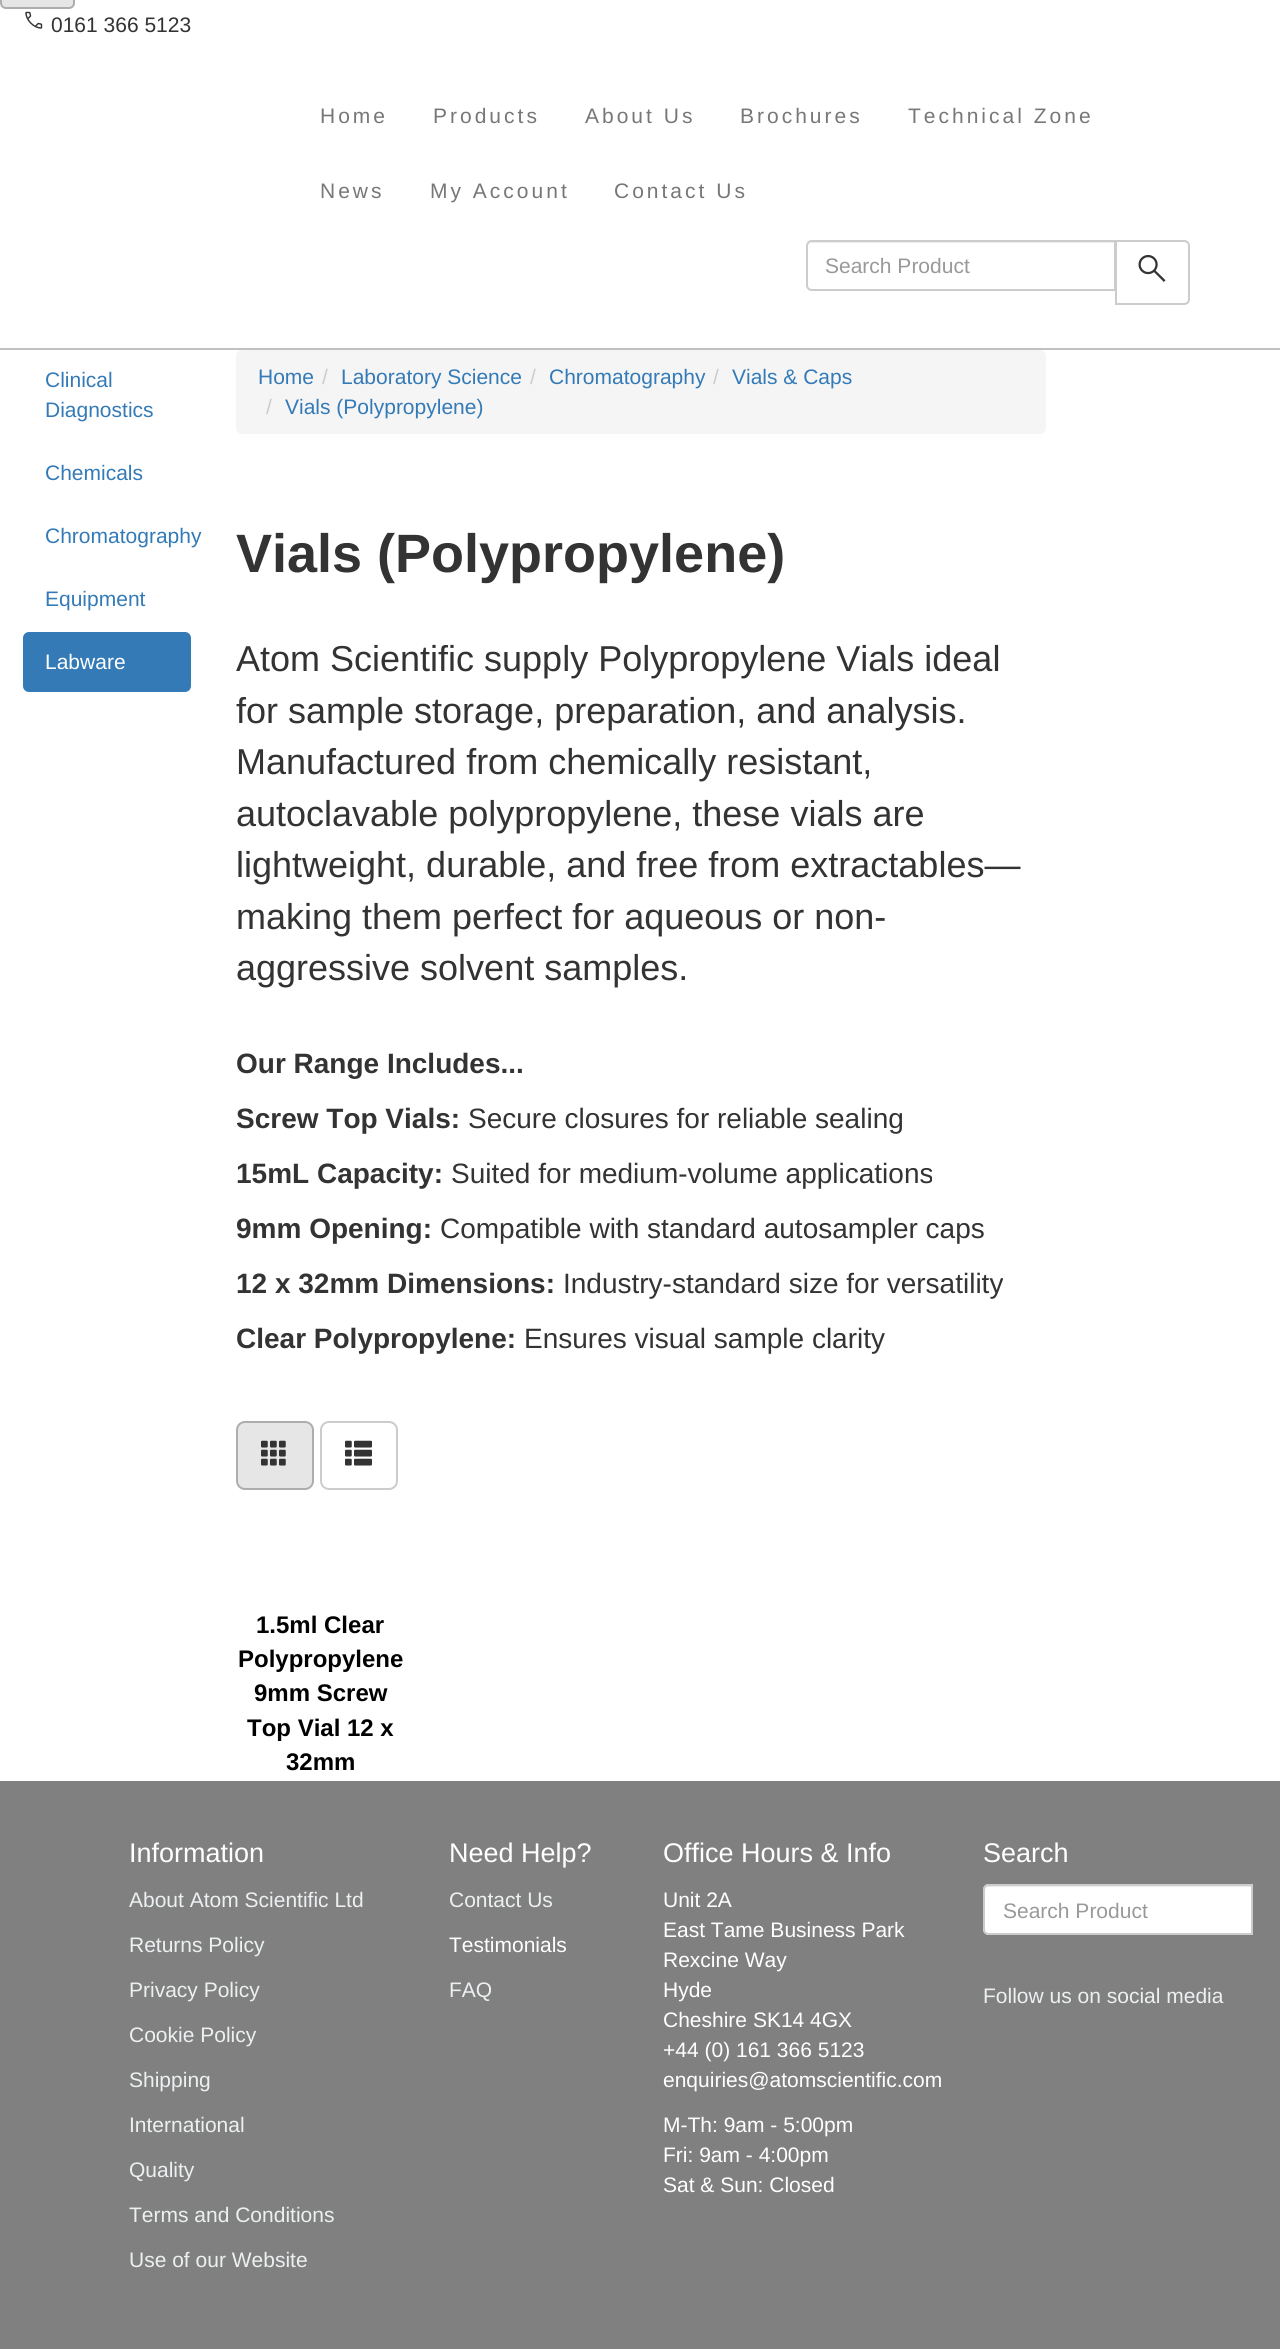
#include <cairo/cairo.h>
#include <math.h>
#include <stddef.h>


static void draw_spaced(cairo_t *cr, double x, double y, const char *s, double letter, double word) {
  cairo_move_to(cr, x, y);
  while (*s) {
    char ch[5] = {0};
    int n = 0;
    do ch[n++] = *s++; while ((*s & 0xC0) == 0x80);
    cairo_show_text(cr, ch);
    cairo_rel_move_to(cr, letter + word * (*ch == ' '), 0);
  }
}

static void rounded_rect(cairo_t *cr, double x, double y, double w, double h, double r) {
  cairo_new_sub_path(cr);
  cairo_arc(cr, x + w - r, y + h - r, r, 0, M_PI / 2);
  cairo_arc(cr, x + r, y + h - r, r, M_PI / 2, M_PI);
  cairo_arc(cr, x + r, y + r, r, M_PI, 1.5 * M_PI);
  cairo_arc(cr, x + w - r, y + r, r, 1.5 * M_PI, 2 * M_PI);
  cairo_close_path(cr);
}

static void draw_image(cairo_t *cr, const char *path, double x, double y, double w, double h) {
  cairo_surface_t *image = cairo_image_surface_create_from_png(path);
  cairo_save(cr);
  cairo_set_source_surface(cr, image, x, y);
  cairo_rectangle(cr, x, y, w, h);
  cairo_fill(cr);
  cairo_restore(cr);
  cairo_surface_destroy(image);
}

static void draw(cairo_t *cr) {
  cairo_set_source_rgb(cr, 1, 1, 1);
  cairo_paint(cr);
  cairo_set_source_rgb(cr, 230 / 255.0, 230 / 255.0, 230 / 255.0);
  rounded_rect(cr, 1, -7, 73, 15, 5);
  cairo_fill_preserve(cr);
  cairo_set_source_rgb(cr, 173 / 255.0, 173 / 255.0, 173 / 255.0);
  cairo_stroke(cr);
  draw_image(cr, "images/1.png", 25, 11, 18, 18);
  cairo_set_source_rgb(cr, 192 / 255.0, 192 / 255.0, 192 / 255.0);
  cairo_rectangle(cr, 0, 348, 1280, 2);
  cairo_fill(cr);
  cairo_set_source_rgb(cr, 236 / 255.0, 236 / 255.0, 236 / 255.0);
  cairo_new_path(cr);
  cairo_move_to(cr, 812, 243);
  cairo_line_to(cr, 1114, 243);
  cairo_line_to(cr, 1114, 290);
  cairo_line_to(cr, 1115, 290);
  cairo_line_to(cr, 1115, 242);
  cairo_line_to(cr, 812, 242);
  cairo_curve_to(cr, 809, 242, 807, 245, 807, 248);
  cairo_curve_to(cr, 807, 245, 809, 243, 812, 243);
  cairo_close_path(cr);
  cairo_fill(cr);
  cairo_new_path(cr);
  cairo_move_to(cr, 812, 241);
  cairo_line_to(cr, 1115, 241);
  cairo_line_to(cr, 1115, 290);
  cairo_line_to(cr, 812, 290);
  cairo_curve_to(cr, 809, 290, 807, 288, 807, 285);
  cairo_line_to(cr, 807, 246);
  cairo_curve_to(cr, 807, 243, 809, 241, 812, 241);
  cairo_close_path(cr);
  cairo_set_source_rgb(cr, 204 / 255.0, 204 / 255.0, 204 / 255.0);
  cairo_stroke(cr);
  cairo_set_source_rgb(cr, 1, 1, 1);
  cairo_new_path(cr);
  cairo_move_to(cr, 1116, 241);
  cairo_line_to(cr, 1184, 241);
  cairo_curve_to(cr, 1187, 241, 1189, 243, 1189, 246);
  cairo_line_to(cr, 1189, 299);
  cairo_curve_to(cr, 1189, 302, 1187, 304, 1184, 304);
  cairo_line_to(cr, 1116, 304);
  cairo_close_path(cr);
  cairo_fill_preserve(cr);
  cairo_set_source_rgb(cr, 204 / 255.0, 204 / 255.0, 204 / 255.0);
  cairo_stroke(cr);
  draw_image(cr, "images/2.png", 1138, 255, 28, 27);
  cairo_set_source_rgb(cr, 51 / 255.0, 122 / 255.0, 183 / 255.0);
  rounded_rect(cr, 23, 632, 168, 60, 6);
  cairo_fill(cr);
  cairo_set_source_rgb(cr, 245 / 255.0, 245 / 255.0, 245 / 255.0);
  rounded_rect(cr, 236, 350, 810, 84, 6);
  cairo_fill(cr);
  cairo_set_source_rgb(cr, 230 / 255.0, 230 / 255.0, 230 / 255.0);
  rounded_rect(cr, 237, 1422, 76, 67, 8);
  cairo_fill_preserve(cr);
  cairo_set_source_rgb(cr, 173 / 255.0, 173 / 255.0, 173 / 255.0);
  cairo_stroke(cr);
  draw_image(cr, "images/3.png", 261, 1440, 25, 26);
  rounded_rect(cr, 321, 1422, 76, 67, 8);
  cairo_set_source_rgb(cr, 204 / 255.0, 204 / 255.0, 204 / 255.0);
  cairo_stroke(cr);
  draw_image(cr, "images/4.png", 345, 1440, 27, 26);
  cairo_set_source_rgb(cr, 128 / 255.0, 128 / 255.0, 128 / 255.0);
  cairo_rectangle(cr, 0, 1781, 1280, 568);
  cairo_fill(cr);
  cairo_set_source_rgb(cr, 1, 1, 1);
  cairo_new_path(cr);
  cairo_move_to(cr, 989, 1884);
  cairo_line_to(cr, 1253, 1884);
  cairo_line_to(cr, 1253, 1935);
  cairo_line_to(cr, 989, 1935);
  cairo_curve_to(cr, 985.5, 1935, 983, 1932.5, 983, 1929);
  cairo_line_to(cr, 983, 1890);
  cairo_curve_to(cr, 983, 1886.5, 985.5, 1884, 989, 1884);
  cairo_close_path(cr);
  cairo_fill(cr);
  cairo_set_source_rgb(cr, 236 / 255.0, 236 / 255.0, 236 / 255.0);
  cairo_new_path(cr);
  cairo_move_to(cr, 988, 1887);
  cairo_line_to(cr, 1251, 1887);
  cairo_line_to(cr, 1251, 1886);
  cairo_line_to(cr, 989, 1886);
  cairo_curve_to(cr, 986, 1886, 984, 1889, 984, 1892);
  cairo_curve_to(cr, 984, 1889, 986, 1887, 988, 1887);
  cairo_close_path(cr);
  cairo_fill(cr);
  cairo_new_path(cr);
  cairo_move_to(cr, 989, 1885);
  cairo_line_to(cr, 1252, 1885);
  cairo_line_to(cr, 1252, 1934);
  cairo_line_to(cr, 989, 1934);
  cairo_curve_to(cr, 986, 1934, 984, 1932, 984, 1929);
  cairo_line_to(cr, 984, 1890);
  cairo_curve_to(cr, 984, 1887, 986, 1885, 989, 1885);
  cairo_close_path(cr);
  cairo_set_source_rgb(cr, 204 / 255.0, 204 / 255.0, 204 / 255.0);
  cairo_stroke(cr);
  cairo_select_font_face(cr, "Liberation Sans", CAIRO_FONT_SLANT_NORMAL, CAIRO_FONT_WEIGHT_NORMAL);
  cairo_set_font_size(cr, 21);
  cairo_set_source_rgb(cr, 51 / 255.0, 51 / 255.0, 51 / 255.0);
  cairo_move_to(cr, 51, 32);
  cairo_show_text(cr, "0161 366 5123");
  cairo_set_source_rgb(cr, 119 / 255.0, 119 / 255.0, 119 / 255.0);
  draw_spaced(cr, 320, 123, "Home", 3, 0);
  draw_spaced(cr, 433, 123, "Products", 3, 0);
  draw_spaced(cr, 585, 123, "About Us", 3, 0);
  draw_spaced(cr, 740, 123, "Brochures", 3, 0);
  draw_spaced(cr, 908, 123, "Technical Zone", 3, 0);
  draw_spaced(cr, 320, 198, "News", 3, 0);
  draw_spaced(cr, 430, 198, "My Account", 3, 0);
  draw_spaced(cr, 614, 198, "Contact Us", 3, 0);
  cairo_set_source_rgb(cr, 153 / 255.0, 153 / 255.0, 153 / 255.0);
  cairo_move_to(cr, 825, 273);
  cairo_show_text(cr, "Search Product");
  cairo_set_source_rgb(cr, 51 / 255.0, 122 / 255.0, 183 / 255.0);
  cairo_move_to(cr, 45, 387);
  cairo_show_text(cr, "Clinical");
  cairo_move_to(cr, 45, 417);
  cairo_show_text(cr, "Diagnostics");
  cairo_move_to(cr, 45, 480);
  cairo_show_text(cr, "Chemicals");
  cairo_move_to(cr, 45, 543);
  cairo_show_text(cr, "Chromatography");
  cairo_move_to(cr, 45, 606);
  cairo_show_text(cr, "Equipment");
  cairo_set_source_rgb(cr, 1, 1, 1);
  cairo_move_to(cr, 45, 669);
  cairo_show_text(cr, "Labware");
  cairo_set_source_rgb(cr, 51 / 255.0, 122 / 255.0, 183 / 255.0);
  cairo_move_to(cr, 258, 384);
  cairo_show_text(cr, "Home");
  cairo_set_source_rgb(cr, 204 / 255.0, 204 / 255.0, 204 / 255.0);
  cairo_move_to(cr, 322, 384);
  cairo_show_text(cr, "/");
  cairo_set_source_rgb(cr, 51 / 255.0, 122 / 255.0, 183 / 255.0);
  cairo_move_to(cr, 341, 384);
  cairo_show_text(cr, "Laboratory Science");
  cairo_set_source_rgb(cr, 204 / 255.0, 204 / 255.0, 204 / 255.0);
  cairo_move_to(cr, 530, 384);
  cairo_show_text(cr, "/");
  cairo_set_source_rgb(cr, 51 / 255.0, 122 / 255.0, 183 / 255.0);
  cairo_move_to(cr, 549, 384);
  cairo_show_text(cr, "Chromatography");
  cairo_set_source_rgb(cr, 204 / 255.0, 204 / 255.0, 204 / 255.0);
  cairo_move_to(cr, 713, 384);
  cairo_show_text(cr, "/");
  cairo_set_source_rgb(cr, 51 / 255.0, 122 / 255.0, 183 / 255.0);
  cairo_move_to(cr, 732, 384);
  cairo_show_text(cr, "Vials & Caps");
  cairo_set_source_rgb(cr, 204 / 255.0, 204 / 255.0, 204 / 255.0);
  cairo_move_to(cr, 266, 414);
  cairo_show_text(cr, "/");
  cairo_set_source_rgb(cr, 51 / 255.0, 122 / 255.0, 183 / 255.0);
  cairo_move_to(cr, 285, 414);
  cairo_show_text(cr, "Vials (Polypropylene)");
  cairo_select_font_face(cr, "Liberation Sans", CAIRO_FONT_SLANT_NORMAL, CAIRO_FONT_WEIGHT_BOLD);
  cairo_set_font_size(cr, 54);
  cairo_set_source_rgb(cr, 51 / 255.0, 51 / 255.0, 51 / 255.0);
  cairo_move_to(cr, 236, 572);
  cairo_show_text(cr, "Vials (Polypropylene)");
  cairo_select_font_face(cr, "Liberation Sans", CAIRO_FONT_SLANT_NORMAL, CAIRO_FONT_WEIGHT_NORMAL);
  cairo_set_font_size(cr, 36);
  cairo_move_to(cr, 236, 671);
  cairo_show_text(cr, "Atom Scientific supply Polypropylene Vials ideal");
  cairo_move_to(cr, 236, 723);
  cairo_show_text(cr, "for sample storage, preparation, and analysis.");
  cairo_move_to(cr, 236, 774);
  cairo_show_text(cr, "Manufactured from chemically resistant,");
  cairo_move_to(cr, 236, 826);
  cairo_show_text(cr, "autoclavable polypropylene, these vials are");
  cairo_move_to(cr, 236, 877);
  cairo_show_text(cr, "lightweight, durable, and free from extractables—");
  cairo_move_to(cr, 236, 929);
  cairo_show_text(cr, "making them perfect for aqueous or non-");
  cairo_move_to(cr, 236, 980);
  cairo_show_text(cr, "aggressive solvent samples.");
  cairo_select_font_face(cr, "Liberation Sans", CAIRO_FONT_SLANT_NORMAL, CAIRO_FONT_WEIGHT_BOLD);
  cairo_set_font_size(cr, 28);
  cairo_move_to(cr, 236, 1073);
  cairo_show_text(cr, "Our Range Includes...");
  cairo_move_to(cr, 236, 1128);
  cairo_show_text(cr, "Screw Top Vials:");
  cairo_select_font_face(cr, "Liberation Sans", CAIRO_FONT_SLANT_NORMAL, CAIRO_FONT_WEIGHT_NORMAL);
  cairo_move_to(cr, 468, 1128);
  cairo_show_text(cr, "Secure closures for reliable sealing");
  cairo_select_font_face(cr, "Liberation Sans", CAIRO_FONT_SLANT_NORMAL, CAIRO_FONT_WEIGHT_BOLD);
  cairo_move_to(cr, 236, 1183);
  cairo_show_text(cr, "15mL Capacity:");
  cairo_select_font_face(cr, "Liberation Sans", CAIRO_FONT_SLANT_NORMAL, CAIRO_FONT_WEIGHT_NORMAL);
  cairo_move_to(cr, 451, 1183);
  cairo_show_text(cr, "Suited for medium-volume applications");
  cairo_select_font_face(cr, "Liberation Sans", CAIRO_FONT_SLANT_NORMAL, CAIRO_FONT_WEIGHT_BOLD);
  cairo_move_to(cr, 236, 1238);
  cairo_show_text(cr, "9mm Opening:");
  cairo_select_font_face(cr, "Liberation Sans", CAIRO_FONT_SLANT_NORMAL, CAIRO_FONT_WEIGHT_NORMAL);
  cairo_move_to(cr, 440, 1238);
  cairo_show_text(cr, "Compatible with standard autosampler caps");
  cairo_select_font_face(cr, "Liberation Sans", CAIRO_FONT_SLANT_NORMAL, CAIRO_FONT_WEIGHT_BOLD);
  cairo_move_to(cr, 236, 1293);
  cairo_show_text(cr, "12 x 32mm Dimensions:");
  cairo_select_font_face(cr, "Liberation Sans", CAIRO_FONT_SLANT_NORMAL, CAIRO_FONT_WEIGHT_NORMAL);
  cairo_move_to(cr, 563, 1293);
  cairo_show_text(cr, "Industry-standard size for versatility");
  cairo_select_font_face(cr, "Liberation Sans", CAIRO_FONT_SLANT_NORMAL, CAIRO_FONT_WEIGHT_BOLD);
  cairo_move_to(cr, 236, 1348);
  cairo_show_text(cr, "Clear Polypropylene:");
  cairo_select_font_face(cr, "Liberation Sans", CAIRO_FONT_SLANT_NORMAL, CAIRO_FONT_WEIGHT_NORMAL);
  cairo_move_to(cr, 524, 1348);
  cairo_show_text(cr, "Ensures visual sample clarity");
  cairo_select_font_face(cr, "Liberation Sans", CAIRO_FONT_SLANT_NORMAL, CAIRO_FONT_WEIGHT_BOLD);
  cairo_set_font_size(cr, 24);
  cairo_set_source_rgb(cr, 0, 0, 0);
  cairo_move_to(cr, 256, 1633);
  cairo_show_text(cr, "1.5ml Clear");
  cairo_move_to(cr, 238, 1667);
  cairo_show_text(cr, "Polypropylene");
  cairo_move_to(cr, 254, 1701);
  cairo_show_text(cr, "9mm Screw");
  cairo_move_to(cr, 247, 1736);
  cairo_show_text(cr, "Top Vial 12 x");
  cairo_move_to(cr, 286, 1770);
  cairo_show_text(cr, "32mm");
  cairo_select_font_face(cr, "Liberation Sans", CAIRO_FONT_SLANT_NORMAL, CAIRO_FONT_WEIGHT_NORMAL);
  cairo_set_font_size(cr, 27);
  cairo_set_source_rgb(cr, 1, 1, 1);
  cairo_move_to(cr, 129, 1862);
  cairo_show_text(cr, "Information");
  cairo_set_font_size(cr, 21);
  cairo_set_source_rgb(cr, 236 / 255.0, 240 / 255.0, 241 / 255.0);
  cairo_move_to(cr, 129, 1907);
  cairo_show_text(cr, "About Atom Scientific Ltd");
  cairo_move_to(cr, 129, 1952);
  cairo_show_text(cr, "Returns Policy");
  cairo_move_to(cr, 129, 1997);
  cairo_show_text(cr, "Privacy Policy");
  cairo_move_to(cr, 129, 2042);
  cairo_show_text(cr, "Cookie Policy");
  cairo_move_to(cr, 129, 2087);
  cairo_show_text(cr, "Shipping");
  cairo_move_to(cr, 129, 2132);
  cairo_show_text(cr, "International");
  cairo_move_to(cr, 129, 2177);
  cairo_show_text(cr, "Quality");
  cairo_move_to(cr, 129, 2222);
  cairo_show_text(cr, "Terms and Conditions");
  cairo_move_to(cr, 129, 2267);
  cairo_show_text(cr, "Use of our Website");
  cairo_set_font_size(cr, 27);
  cairo_set_source_rgb(cr, 1, 1, 1);
  cairo_move_to(cr, 449, 1862);
  cairo_show_text(cr, "Need Help?");
  cairo_set_font_size(cr, 21);
  cairo_set_source_rgb(cr, 236 / 255.0, 240 / 255.0, 241 / 255.0);
  cairo_move_to(cr, 449, 1907);
  cairo_show_text(cr, "Contact Us");
  cairo_set_source_rgb(cr, 1, 1, 1);
  cairo_move_to(cr, 449, 1952);
  cairo_show_text(cr, "Testimonials");
  cairo_set_source_rgb(cr, 236 / 255.0, 240 / 255.0, 241 / 255.0);
  cairo_move_to(cr, 449, 1997);
  cairo_show_text(cr, "FAQ");
  cairo_set_font_size(cr, 27);
  cairo_set_source_rgb(cr, 1, 1, 1);
  cairo_move_to(cr, 663, 1862);
  cairo_show_text(cr, "Office Hours & Info");
  cairo_set_font_size(cr, 21);
  cairo_move_to(cr, 663, 1907);
  cairo_show_text(cr, "Unit 2A");
  cairo_move_to(cr, 663, 1937);
  cairo_show_text(cr, "East Tame Business Park");
  cairo_move_to(cr, 663, 1967);
  cairo_show_text(cr, "Rexcine Way");
  cairo_move_to(cr, 663, 1997);
  cairo_show_text(cr, "Hyde");
  cairo_move_to(cr, 663, 2027);
  cairo_show_text(cr, "Cheshire SK14 4GX");
  cairo_move_to(cr, 663, 2057);
  cairo_show_text(cr, "+44 (0) 161 366 5123");
  cairo_move_to(cr, 663, 2087);
  cairo_show_text(cr, "enquiries@atomscientific.com");
  cairo_move_to(cr, 663, 2132);
  cairo_show_text(cr, "M-Th: 9am - 5:00pm");
  cairo_move_to(cr, 663, 2162);
  cairo_show_text(cr, "Fri: 9am - 4:00pm");
  cairo_move_to(cr, 663, 2192);
  cairo_show_text(cr, "Sat & Sun: Closed");
  cairo_set_font_size(cr, 27);
  cairo_move_to(cr, 983, 1862);
  cairo_show_text(cr, "Search");
  cairo_set_font_size(cr, 21);
  cairo_set_source_rgb(cr, 153 / 255.0, 153 / 255.0, 153 / 255.0);
  cairo_move_to(cr, 1003, 1918);
  cairo_show_text(cr, "Search Product");
  cairo_set_source_rgb(cr, 236 / 255.0, 240 / 255.0, 241 / 255.0);
  cairo_move_to(cr, 983, 2003);
  cairo_show_text(cr, "Follow us on social media");
}

int main(void) {
  cairo_surface_t *surface = cairo_image_surface_create(CAIRO_FORMAT_RGB24, 1280, 2349);
  cairo_t *cr = cairo_create(surface);
  cairo_font_options_t *options = cairo_font_options_create();
  cairo_font_options_set_hint_metrics(options, CAIRO_HINT_METRICS_OFF);
  cairo_font_options_set_hint_style(options, CAIRO_HINT_STYLE_NONE);
  cairo_set_font_options(cr, options);
  cairo_set_miter_limit(cr, 4);
  draw(cr);
  cairo_surface_write_to_png(surface, "out.png");
  cairo_font_options_destroy(options);
  cairo_destroy(cr);
  cairo_surface_destroy(surface);
  return 0;
}
